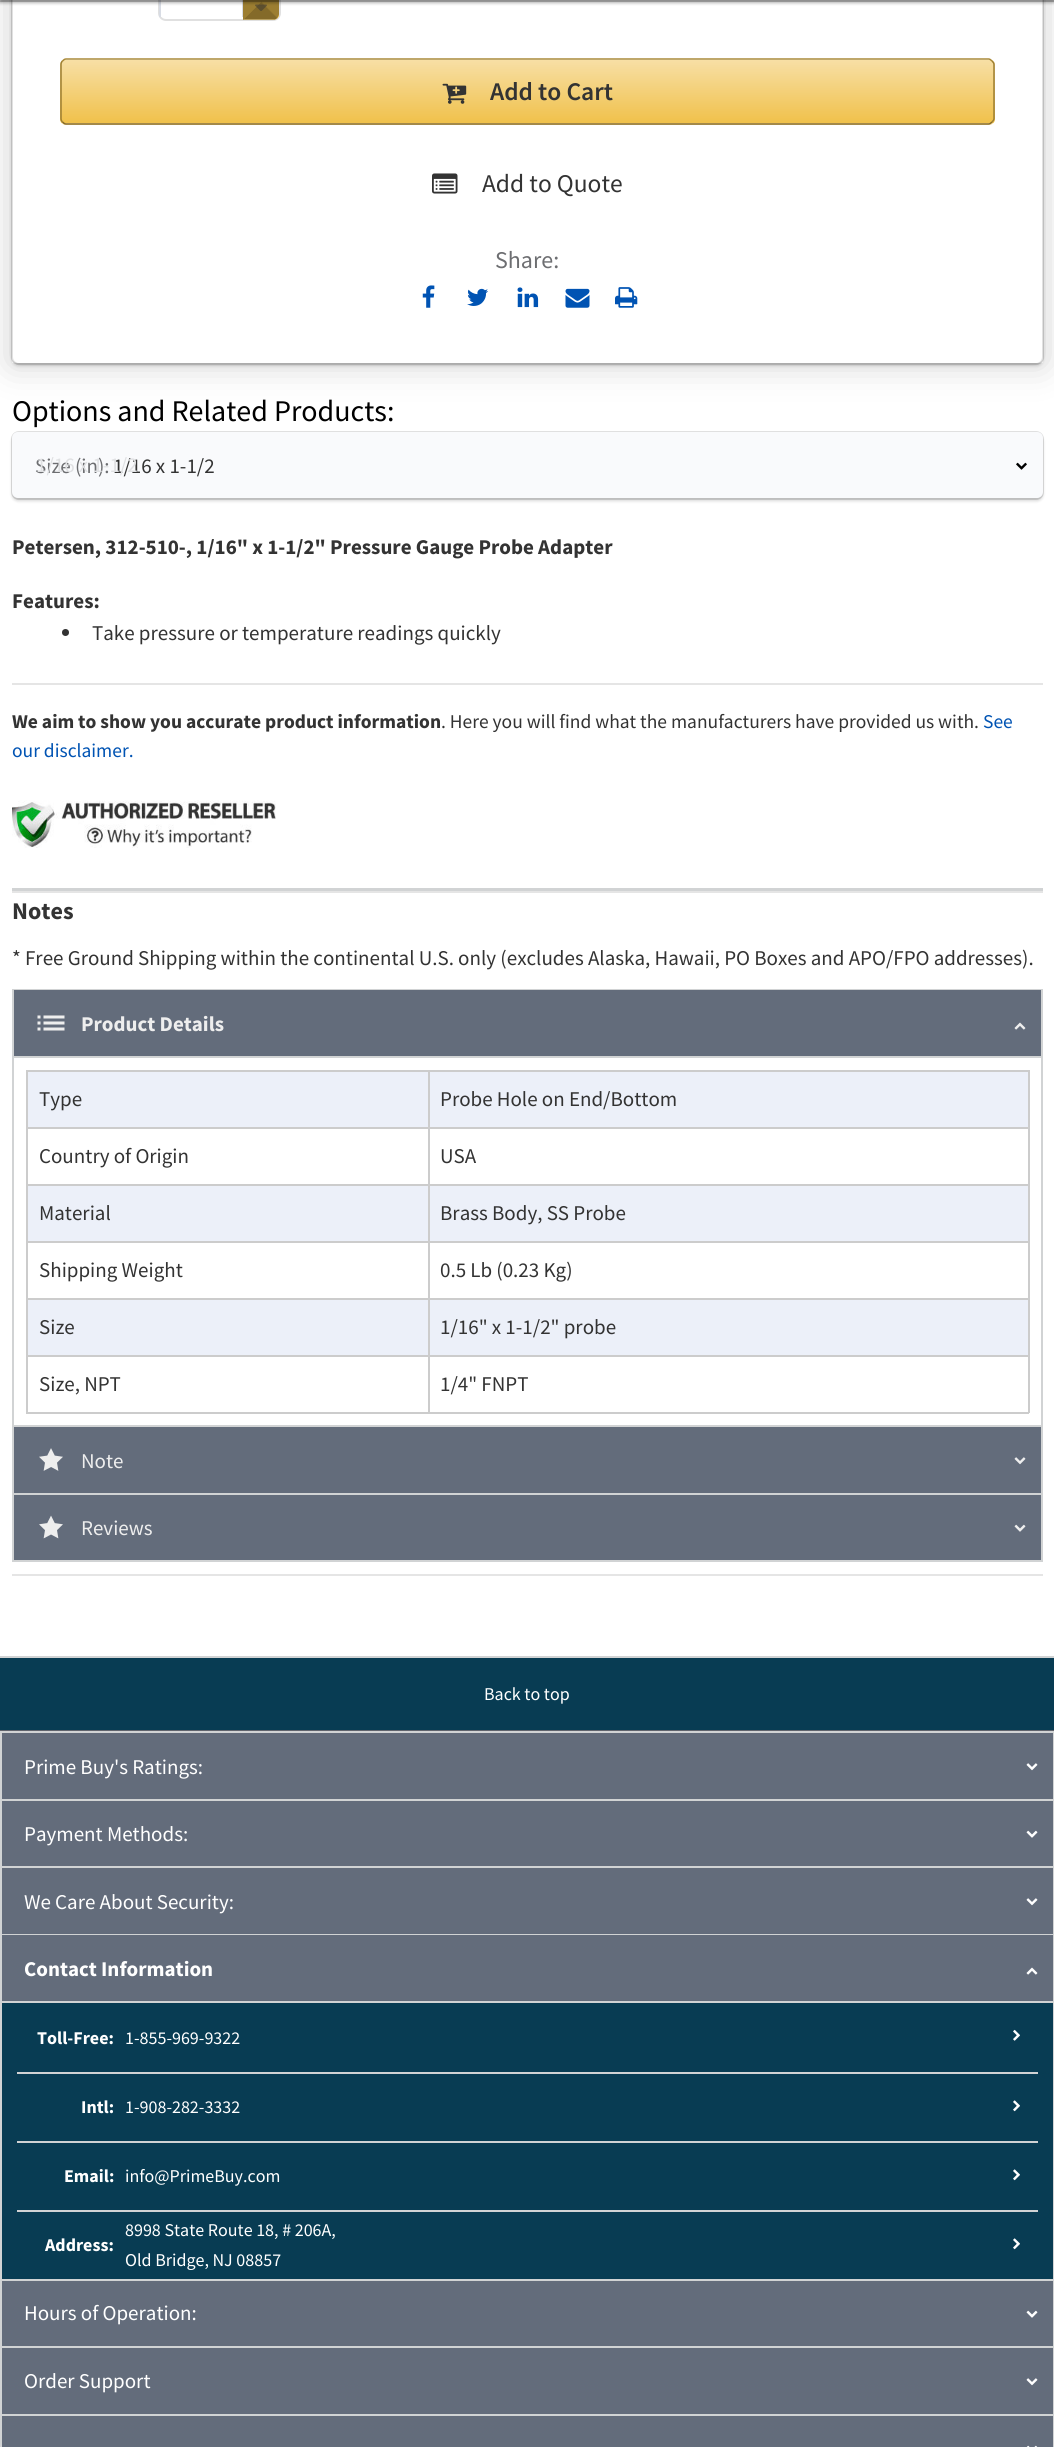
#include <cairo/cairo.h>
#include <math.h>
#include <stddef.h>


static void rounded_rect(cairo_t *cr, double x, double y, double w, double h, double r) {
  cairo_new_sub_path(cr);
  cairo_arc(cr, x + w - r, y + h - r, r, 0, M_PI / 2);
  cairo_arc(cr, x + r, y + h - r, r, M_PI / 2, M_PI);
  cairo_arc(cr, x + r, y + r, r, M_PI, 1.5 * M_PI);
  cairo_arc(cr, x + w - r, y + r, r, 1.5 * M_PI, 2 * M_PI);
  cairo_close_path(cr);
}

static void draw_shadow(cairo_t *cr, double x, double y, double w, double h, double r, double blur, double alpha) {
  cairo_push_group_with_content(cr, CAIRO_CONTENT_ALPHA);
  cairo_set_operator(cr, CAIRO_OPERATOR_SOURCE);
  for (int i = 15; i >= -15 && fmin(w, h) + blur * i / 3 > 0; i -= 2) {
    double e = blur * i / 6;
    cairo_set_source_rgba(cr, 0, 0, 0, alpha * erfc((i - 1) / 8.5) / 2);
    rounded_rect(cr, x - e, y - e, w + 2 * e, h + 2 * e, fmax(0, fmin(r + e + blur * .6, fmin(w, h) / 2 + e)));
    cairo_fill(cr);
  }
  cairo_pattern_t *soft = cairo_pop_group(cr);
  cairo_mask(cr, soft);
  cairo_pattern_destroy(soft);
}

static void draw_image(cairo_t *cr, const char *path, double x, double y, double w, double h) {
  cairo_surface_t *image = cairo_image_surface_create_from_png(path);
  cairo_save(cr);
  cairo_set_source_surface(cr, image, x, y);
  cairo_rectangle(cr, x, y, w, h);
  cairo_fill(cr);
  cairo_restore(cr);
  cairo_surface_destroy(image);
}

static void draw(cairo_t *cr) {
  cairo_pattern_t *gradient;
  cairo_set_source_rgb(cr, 1, 1, 1);
  cairo_paint(cr);
  cairo_save(cr);
  cairo_set_fill_rule(cr, CAIRO_FILL_RULE_EVEN_ODD);
  cairo_new_path(cr);
  cairo_move_to(cr, 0, 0);
  cairo_line_to(cr, 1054, 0);
  cairo_line_to(cr, 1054, 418);
  cairo_line_to(cr, 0, 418);
  cairo_close_path(cr);
  cairo_move_to(cr, 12, -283);
  cairo_line_to(cr, 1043, -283);
  cairo_line_to(cr, 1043, 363);
  cairo_line_to(cr, 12, 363);
  cairo_close_path(cr);
  cairo_clip(cr);
  cairo_set_source_rgb(cr, 0, 0, 0);
  draw_shadow(cr, 12, -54, 1031, 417, 0, 18, 0.2);
  cairo_restore(cr);
  rounded_rect(cr, 12, -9, 1031, 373, 7);
  cairo_set_source_rgba(cr, 0, 0, 0, 0.12);
  cairo_stroke(cr);
  cairo_save(cr);
  cairo_set_fill_rule(cr, CAIRO_FILL_RULE_EVEN_ODD);
  cairo_new_path(cr);
  cairo_move_to(cr, 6, 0);
  cairo_line_to(cr, 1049, 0);
  cairo_line_to(cr, 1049, 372);
  cairo_line_to(cr, 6, 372);
  cairo_close_path(cr);
  cairo_move_to(cr, 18, -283);
  cairo_line_to(cr, 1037, -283);
  cairo_curve_to(cr, 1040.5, -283, 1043, -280.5, 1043, -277);
  cairo_line_to(cr, 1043, 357);
  cairo_curve_to(cr, 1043, 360.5, 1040.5, 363, 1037, 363);
  cairo_line_to(cr, 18, 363);
  cairo_curve_to(cr, 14.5, 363, 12, 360.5, 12, 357);
  cairo_line_to(cr, 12, -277);
  cairo_curve_to(cr, 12, -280.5, 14.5, -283, 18, -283);
  cairo_close_path(cr);
  cairo_clip(cr);
  cairo_set_source_rgb(cr, 0, 0, 0);
  draw_shadow(cr, 12, -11, 1031, 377, 6, 1.5, 0.16);
  cairo_restore(cr);
  rounded_rect(cr, 159, -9, 121, 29, 7);
  cairo_set_source_rgb(cr, 224 / 255.0, 224 / 255.0, 224 / 255.0);
  cairo_stroke(cr);
  cairo_set_source_rgb(cr, 216 / 255.0, 220 / 255.0, 228 / 255.0);
  cairo_rectangle(cr, 242, 0, 1, 17);
  cairo_fill(cr);
  cairo_rectangle(cr, 159, 0, 2, 17);
  cairo_fill(cr);
  cairo_set_source_rgb(cr, 240 / 255.0, 193 / 255.0, 75 / 255.0);
  cairo_new_path(cr);
  cairo_move_to(cr, 243, -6);
  cairo_line_to(cr, 273, -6);
  cairo_curve_to(cr, 276.5, -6, 279, -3.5, 279, 0);
  cairo_line_to(cr, 279, 14);
  cairo_curve_to(cr, 279, 17.5, 276.5, 20, 273, 20);
  cairo_line_to(cr, 243, 20);
  cairo_close_path(cr);
  cairo_fill(cr);
  cairo_save(cr);
  rounded_rect(cr, 159, -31, 120, 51, 6);
  cairo_clip(cr);
  cairo_new_path(cr);
  cairo_move_to(cr, 243, -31);
  cairo_line_to(cr, 273, -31);
  cairo_curve_to(cr, 276.5, -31, 279, -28.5, 279, -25);
  cairo_line_to(cr, 279, 14);
  cairo_curve_to(cr, 279, 17.5, 276.5, 20, 273, 20);
  cairo_line_to(cr, 243, 20);
  cairo_close_path(cr);
  cairo_clip(cr);
  gradient = cairo_pattern_create_linear(261, -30, 261, 18);
  cairo_pattern_add_color_stop_rgba(gradient, 0, 247 / 255.0, 223 / 255.0, 165 / 255.0, 1);
  cairo_pattern_add_color_stop_rgba(gradient, 1, 240 / 255.0, 193 / 255.0, 75 / 255.0, 1);
  cairo_set_source(cr, gradient);
  cairo_pattern_destroy(gradient);
  cairo_rectangle(cr, 245, 2, 34, 16);
  cairo_fill(cr);
  cairo_restore(cr);
  cairo_set_source_rgb(cr, 156 / 255.0, 126 / 255.0, 49 / 255.0);
  cairo_new_path(cr);
  cairo_move_to(cr, 279, 14);
  cairo_curve_to(cr, 279, 15, 278, 17, 277, 18);
  cairo_line_to(cr, 261, 2);
  cairo_line_to(cr, 261, -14);
  cairo_line_to(cr, 277, -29);
  cairo_curve_to(cr, 278, -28, 279, -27, 279, -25);
  cairo_close_path(cr);
  cairo_fill(cr);
  cairo_save(cr);
  rounded_rect(cr, 159, -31, 120, 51, 6);
  cairo_clip(cr);
  cairo_new_path(cr);
  cairo_move_to(cr, 243, -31);
  cairo_line_to(cr, 273, -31);
  cairo_curve_to(cr, 276.5, -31, 279, -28.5, 279, -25);
  cairo_line_to(cr, 279, 14);
  cairo_curve_to(cr, 279, 17.5, 276.5, 20, 273, 20);
  cairo_line_to(cr, 243, 20);
  cairo_close_path(cr);
  cairo_clip(cr);
  gradient = cairo_pattern_create_linear(261, 18, 261, 66);
  cairo_pattern_add_color_stop_rgba(gradient, 0, 247 / 255.0, 223 / 255.0, 165 / 255.0, 1);
  cairo_pattern_add_color_stop_rgba(gradient, 1, 240 / 255.0, 193 / 255.0, 75 / 255.0, 1);
  cairo_set_source(cr, gradient);
  cairo_pattern_destroy(gradient);
  cairo_rectangle(cr, 243, 18, 36, 2);
  cairo_fill(cr);
  cairo_restore(cr);
  cairo_set_source_rgb(cr, 132 / 255.0, 106 / 255.0, 41 / 255.0);
  cairo_new_path(cr);
  cairo_move_to(cr, 243, 19.5);
  cairo_line_to(cr, 275, 19.5);
  cairo_line_to(cr, 277.5, 18);
  cairo_line_to(cr, 261, 1.5);
  cairo_close_path(cr);
  cairo_fill(cr);
  cairo_set_source_rgb(cr, 156 / 255.0, 126 / 255.0, 49 / 255.0);
  cairo_new_path(cr);
  cairo_move_to(cr, 243, 20);
  cairo_line_to(cr, 261, 2);
  cairo_line_to(cr, 261, -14);
  cairo_line_to(cr, 243, -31);
  cairo_close_path(cr);
  cairo_fill(cr);
  cairo_rectangle(cr, 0, -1, 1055, 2);
  cairo_set_source_rgba(cr, 0, 0, 0, 0.12);
  cairo_stroke(cr);
  draw_image(cr, "images/1.png", 255, 4, 12, 7);
  cairo_set_source_rgb(cr, 0, 0, 0);
  draw_shadow(cr, 0, -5, 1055, 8, 0, 1.5, 0.16);
  cairo_rectangle(cr, 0, -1, 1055, 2);
  cairo_set_source_rgba(cr, 0, 0, 0, 0.12);
  cairo_stroke(cr);
  cairo_set_source_rgb(cr, 0, 0, 0);
  draw_shadow(cr, 0, -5, 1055, 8, 0, 1.5, 0.16);
  cairo_set_source_rgb(cr, 1, 1, 1);
  cairo_rectangle(cr, 161, 16, 1, 1);
  cairo_fill(cr);
  cairo_save(cr);
  rounded_rect(cr, 60, 59, 935, 66, 6);
  cairo_clip(cr);
  gradient = cairo_pattern_create_linear(527, 60, 527, 123);
  cairo_pattern_add_color_stop_rgba(gradient, 0, 247 / 255.0, 223 / 255.0, 165 / 255.0, 1);
  cairo_pattern_add_color_stop_rgba(gradient, 1, 240 / 255.0, 193 / 255.0, 75 / 255.0, 1);
  cairo_set_source(cr, gradient);
  cairo_pattern_destroy(gradient);
  cairo_rectangle(cr, 60, 60, 935, 63);
  cairo_fill(cr);
  gradient = cairo_pattern_create_linear(527, 123, 527, 186);
  cairo_pattern_add_color_stop_rgba(gradient, 0, 247 / 255.0, 223 / 255.0, 165 / 255.0, 1);
  cairo_pattern_add_color_stop_rgba(gradient, 1, 240 / 255.0, 193 / 255.0, 75 / 255.0, 1);
  cairo_set_source(cr, gradient);
  cairo_pattern_destroy(gradient);
  cairo_rectangle(cr, 60, 123, 935, 2);
  cairo_fill(cr);
  cairo_restore(cr);
  cairo_new_path(cr);
  cairo_move_to(cr, 62.5, 61);
  cairo_curve_to(cr, 63.5, 60, 64.5, 59, 66, 59);
  cairo_line_to(cr, 988.5, 59);
  cairo_curve_to(cr, 990, 59, 991, 60, 992, 61);
  cairo_set_source_rgb(cr, 168 / 255.0, 135 / 255.0, 52 / 255.0);
  cairo_set_line_width(cr, 1.5);
  cairo_stroke(cr);
  cairo_new_path(cr);
  cairo_move_to(cr, 992, 61);
  cairo_curve_to(cr, 993, 62, 994, 63, 994, 64.5);
  cairo_line_to(cr, 994, 118.5);
  cairo_curve_to(cr, 994, 120, 993, 121, 992, 122);
  cairo_set_source_rgb(cr, 156 / 255.0, 126 / 255.0, 49 / 255.0);
  cairo_stroke(cr);
  cairo_new_path(cr);
  cairo_move_to(cr, 992, 122);
  cairo_curve_to(cr, 991, 123, 990, 124, 988.5, 124);
  cairo_line_to(cr, 66, 124);
  cairo_curve_to(cr, 64.5, 124, 63.5, 123, 62.5, 122);
  cairo_set_source_rgb(cr, 132 / 255.0, 106 / 255.0, 41 / 255.0);
  cairo_stroke(cr);
  cairo_new_path(cr);
  cairo_move_to(cr, 62.5, 122);
  cairo_curve_to(cr, 61.5, 121, 61, 120, 61, 118.5);
  cairo_line_to(cr, 61, 64.5);
  cairo_curve_to(cr, 61, 63, 61.5, 62, 62.5, 61);
  cairo_set_source_rgb(cr, 156 / 255.0, 126 / 255.0, 49 / 255.0);
  cairo_stroke(cr);
  draw_image(cr, "images/2.png", 442, 83, 25, 21);
  draw_image(cr, "images/3.png", 432, 173, 26, 21);
  draw_image(cr, "images/4.png", 422, 285, 13, 23);
  draw_image(cr, "images/5.png", 467, 288, 21, 18);
  draw_image(cr, "images/6.png", 517, 287, 22, 21);
  draw_image(cr, "images/7.png", 565, 288, 25, 20);
  draw_image(cr, "images/8.png", 615, 287, 23, 21);
  rounded_rect(cr, 12, 432, 1031, 67, 7);
  cairo_set_source_rgb(cr, 224 / 255.0, 224 / 255.0, 224 / 255.0);
  cairo_set_line_width(cr, 2);
  cairo_stroke(cr);
  cairo_set_source_rgb(cr, 0, 0, 0);
  draw_shadow(cr, 12, 435, 1031, 66, 6, 1.5, 0.16);
  cairo_set_source_rgb(cr, 249 / 255.0, 250 / 255.0, 252 / 255.0);
  rounded_rect(cr, 12, 432, 1031, 66, 6);
  cairo_fill(cr);
  draw_image(cr, "images/9.png", 1016, 462, 11, 8);
  cairo_set_source_rgb(cr, 229 / 255.0, 229 / 255.0, 229 / 255.0);
  cairo_rectangle(cr, 12, 683, 1031, 2);
  cairo_fill(cr);
  cairo_set_source_rgb(cr, 51 / 255.0, 51 / 255.0, 51 / 255.0);
  cairo_arc(cr, 65.5, 632.5, 3.5, 0, 2 * M_PI);
  cairo_fill(cr);
  draw_image(cr, "images/10.png", 12, 800, 264, 48);
  cairo_set_source_rgb(cr, 229 / 255.0, 229 / 255.0, 229 / 255.0);
  cairo_rectangle(cr, 12, 891, 1031, 2);
  cairo_fill(cr);
  cairo_set_source_rgb(cr, 209 / 255.0, 211 / 255.0, 212 / 255.0);
  cairo_rectangle(cr, 12, 888, 1031, 3);
  cairo_fill(cr);
  cairo_set_source_rgb(cr, 229 / 255.0, 229 / 255.0, 229 / 255.0);
  cairo_rectangle(cr, 12, 1574, 1031, 2);
  cairo_fill(cr);
  cairo_rectangle(cr, 13, 990, 1029, 571);
  cairo_set_source_rgb(cr, 209 / 255.0, 211 / 255.0, 212 / 255.0);
  cairo_stroke(cr);
  cairo_set_source_rgb(cr, 99 / 255.0, 108 / 255.0, 123 / 255.0);
  cairo_rectangle(cr, 14, 990, 1027, 66);
  cairo_fill(cr);
  draw_image(cr, "images/11.png", 37, 1015, 28, 16);
  draw_image(cr, "images/12.png", 1014, 1022, 12, 8);
  cairo_set_source_rgb(cr, 209 / 255.0, 211 / 255.0, 212 / 255.0);
  cairo_rectangle(cr, 14, 1056, 1027, 2);
  cairo_fill(cr);
  cairo_set_source_rgb(cr, 236 / 255.0, 240 / 255.0, 249 / 255.0);
  cairo_rectangle(cr, 28, 1072, 400, 55);
  cairo_fill(cr);
  cairo_set_source_rgb(cr, 204 / 255.0, 204 / 255.0, 204 / 255.0);
  cairo_rectangle(cr, 428, 1070, 601, 2);
  cairo_fill(cr);
  cairo_rectangle(cr, 428, 1127, 601, 2);
  cairo_fill(cr);
  cairo_rectangle(cr, 428, 1184, 601, 2);
  cairo_fill(cr);
  cairo_rectangle(cr, 428, 1241, 601, 2);
  cairo_fill(cr);
  cairo_rectangle(cr, 428, 1298, 601, 2);
  cairo_fill(cr);
  cairo_rectangle(cr, 428, 1355, 601, 2);
  cairo_fill(cr);
  cairo_rectangle(cr, 1028, 1355, 2, 58);
  cairo_fill(cr);
  cairo_rectangle(cr, 428, 1412, 601, 2);
  cairo_fill(cr);
  cairo_rectangle(cr, 428, 1355, 2, 58);
  cairo_fill(cr);
  cairo_rectangle(cr, 26, 1355, 403, 2);
  cairo_fill(cr);
  cairo_rectangle(cr, 428, 1298, 2, 58);
  cairo_fill(cr);
  cairo_rectangle(cr, 26, 1298, 403, 2);
  cairo_fill(cr);
  cairo_rectangle(cr, 428, 1241, 2, 58);
  cairo_fill(cr);
  cairo_rectangle(cr, 26, 1241, 403, 2);
  cairo_fill(cr);
  cairo_rectangle(cr, 428, 1184, 2, 58);
  cairo_fill(cr);
  cairo_rectangle(cr, 26, 1184, 403, 2);
  cairo_fill(cr);
  cairo_rectangle(cr, 428, 1127, 2, 58);
  cairo_fill(cr);
  cairo_rectangle(cr, 26, 1127, 403, 2);
  cairo_fill(cr);
  cairo_rectangle(cr, 428, 1070, 2, 58);
  cairo_fill(cr);
  cairo_rectangle(cr, 26, 1070, 403, 2);
  cairo_fill(cr);
  cairo_rectangle(cr, 26, 1412, 403, 2);
  cairo_fill(cr);
  cairo_rectangle(cr, 26, 1355, 2, 58);
  cairo_fill(cr);
  cairo_rectangle(cr, 26, 1298, 2, 58);
  cairo_fill(cr);
  cairo_rectangle(cr, 26, 1241, 2, 58);
  cairo_fill(cr);
  cairo_rectangle(cr, 26, 1184, 2, 58);
  cairo_fill(cr);
  cairo_rectangle(cr, 26, 1127, 2, 58);
  cairo_fill(cr);
  cairo_rectangle(cr, 26, 1070, 2, 58);
  cairo_fill(cr);
  cairo_set_source_rgb(cr, 236 / 255.0, 240 / 255.0, 249 / 255.0);
  cairo_rectangle(cr, 430, 1072, 598, 55);
  cairo_fill(cr);
  cairo_set_source_rgb(cr, 204 / 255.0, 204 / 255.0, 204 / 255.0);
  cairo_rectangle(cr, 1028, 1298, 2, 58);
  cairo_fill(cr);
  cairo_rectangle(cr, 1028, 1241, 2, 58);
  cairo_fill(cr);
  cairo_rectangle(cr, 1028, 1184, 2, 58);
  cairo_fill(cr);
  cairo_rectangle(cr, 1028, 1127, 2, 58);
  cairo_fill(cr);
  cairo_rectangle(cr, 1028, 1070, 2, 58);
  cairo_fill(cr);
  cairo_set_source_rgb(cr, 236 / 255.0, 240 / 255.0, 249 / 255.0);
  cairo_rectangle(cr, 28, 1186, 400, 55);
  cairo_fill(cr);
  cairo_rectangle(cr, 430, 1186, 598, 55);
  cairo_fill(cr);
  cairo_rectangle(cr, 28, 1300, 400, 55);
  cairo_fill(cr);
  cairo_rectangle(cr, 430, 1300, 598, 55);
  cairo_fill(cr);
  cairo_set_source_rgb(cr, 99 / 255.0, 108 / 255.0, 123 / 255.0);
  cairo_rectangle(cr, 14, 1427, 1027, 66);
  cairo_fill(cr);
  cairo_set_source_rgb(cr, 209 / 255.0, 211 / 255.0, 212 / 255.0);
  cairo_rectangle(cr, 14, 1425, 1027, 2);
  cairo_fill(cr);
  draw_image(cr, "images/13.png", 39, 1448, 24, 23);
  draw_image(cr, "images/14.png", 1014, 1457, 12, 8);
  cairo_set_source_rgb(cr, 99 / 255.0, 108 / 255.0, 123 / 255.0);
  cairo_rectangle(cr, 14, 1495, 1027, 65);
  cairo_fill(cr);
  cairo_set_source_rgb(cr, 209 / 255.0, 211 / 255.0, 212 / 255.0);
  cairo_rectangle(cr, 14, 1493, 1027, 2);
  cairo_fill(cr);
  draw_image(cr, "images/15.png", 39, 1515, 24, 24);
  draw_image(cr, "images/16.png", 1014, 1524, 12, 8);
  cairo_set_source_rgb(cr, 8 / 255.0, 60 / 255.0, 83 / 255.0);
  cairo_rectangle(cr, 0, 1658, 1054, 621);
  cairo_fill(cr);
  cairo_set_source_rgb(cr, 209 / 255.0, 211 / 255.0, 212 / 255.0);
  cairo_rectangle(cr, 0, 1656, 1054, 2);
  cairo_fill(cr);
  cairo_set_source_rgb(cr, 95 / 255.0, 99 / 255.0, 108 / 255.0);
  cairo_rectangle(cr, 0, 1730, 1054, 1);
  cairo_fill(cr);
  cairo_rectangle(cr, 1, 1732, 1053, 202);
  cairo_set_source_rgb(cr, 209 / 255.0, 211 / 255.0, 212 / 255.0);
  cairo_stroke(cr);
  cairo_set_source_rgb(cr, 99 / 255.0, 108 / 255.0, 123 / 255.0);
  cairo_rectangle(cr, 2, 1733, 1051, 66);
  cairo_fill(cr);
  draw_image(cr, "images/17.png", 1026, 1763, 12, 8);
  cairo_rectangle(cr, 2, 1801, 1051, 65);
  cairo_fill(cr);
  cairo_set_source_rgb(cr, 209 / 255.0, 211 / 255.0, 212 / 255.0);
  cairo_rectangle(cr, 2, 1799, 1051, 2);
  cairo_fill(cr);
  draw_image(cr, "images/18.png", 1026, 1830, 12, 8);
  cairo_set_source_rgb(cr, 99 / 255.0, 108 / 255.0, 123 / 255.0);
  cairo_rectangle(cr, 2, 1868, 1051, 66);
  cairo_fill(cr);
  cairo_set_source_rgb(cr, 209 / 255.0, 211 / 255.0, 212 / 255.0);
  cairo_rectangle(cr, 2, 1866, 1051, 2);
  cairo_fill(cr);
  draw_image(cr, "images/17.png", 1026, 1898, 12, 8);
  cairo_rectangle(cr, 1, 1935, 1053, 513);
  cairo_stroke(cr);
  cairo_set_source_rgb(cr, 99 / 255.0, 108 / 255.0, 123 / 255.0);
  cairo_rectangle(cr, 2, 1935, 1051, 66);
  cairo_fill(cr);
  draw_image(cr, "images/19.png", 1026, 1967, 12, 8);
  cairo_set_source_rgb(cr, 209 / 255.0, 211 / 255.0, 212 / 255.0);
  cairo_rectangle(cr, 2, 2001, 1051, 2);
  cairo_fill(cr);
  cairo_rectangle(cr, 17, 2072, 1021, 2);
  cairo_fill(cr);
  draw_image(cr, "images/20.png", 1013, 2029, 7, 12);
  cairo_rectangle(cr, 17, 2141, 1021, 2);
  cairo_fill(cr);
  draw_image(cr, "images/21.png", 1013, 2100, 7, 12);
  cairo_rectangle(cr, 17, 2210, 1021, 2);
  cairo_fill(cr);
  draw_image(cr, "images/21.png", 1013, 2169, 7, 12);
  draw_image(cr, "images/21.png", 1013, 2238, 7, 12);
  cairo_set_source_rgb(cr, 99 / 255.0, 108 / 255.0, 123 / 255.0);
  cairo_rectangle(cr, 2, 2281, 1051, 65);
  cairo_fill(cr);
  cairo_set_source_rgb(cr, 209 / 255.0, 211 / 255.0, 212 / 255.0);
  cairo_rectangle(cr, 2, 2279, 1051, 2);
  cairo_fill(cr);
  draw_image(cr, "images/18.png", 1026, 2310, 12, 8);
  cairo_set_source_rgb(cr, 99 / 255.0, 108 / 255.0, 123 / 255.0);
  cairo_rectangle(cr, 2, 2348, 1051, 66);
  cairo_fill(cr);
  cairo_set_source_rgb(cr, 209 / 255.0, 211 / 255.0, 212 / 255.0);
  cairo_rectangle(cr, 2, 2346, 1051, 2);
  cairo_fill(cr);
  draw_image(cr, "images/17.png", 1026, 2378, 12, 8);
  cairo_set_source_rgb(cr, 99 / 255.0, 108 / 255.0, 123 / 255.0);
  cairo_rectangle(cr, 2, 2416, 1051, 31);
  cairo_fill(cr);
  cairo_set_source_rgb(cr, 209 / 255.0, 211 / 255.0, 212 / 255.0);
  cairo_rectangle(cr, 2, 2414, 1051, 2);
  cairo_fill(cr);
  draw_image(cr, "images/22.png", 1026, 2445, 12, 2);
  cairo_select_font_face(cr, "Source Sans Pro SemiBold", CAIRO_FONT_SLANT_NORMAL, CAIRO_FONT_WEIGHT_NORMAL);
  cairo_set_font_size(cr, 25.5);
  cairo_set_source_rgb(cr, 51 / 255.0, 51 / 255.0, 51 / 255.0);
  cairo_move_to(cr, 490, 100);
  cairo_show_text(cr, "Add to Cart");
  cairo_select_font_face(cr, "Source Sans Pro", CAIRO_FONT_SLANT_NORMAL, CAIRO_FONT_WEIGHT_NORMAL);
  cairo_move_to(cr, 482, 192);
  cairo_show_text(cr, "Add to Quote");
  cairo_set_font_size(cr, 24);
  cairo_set_source_rgb(cr, 109 / 255.0, 110 / 255.0, 113 / 255.0);
  cairo_move_to(cr, 495, 268);
  cairo_show_text(cr, "Share:");
  cairo_set_font_size(cr, 30);
  cairo_set_source_rgb(cr, 0, 0, 0);
  cairo_move_to(cr, 12, 421);
  cairo_show_text(cr, "Options and Related Products:");
  cairo_set_font_size(cr, 21);
  cairo_set_source_rgb(cr, 109 / 255.0, 110 / 255.0, 113 / 255.0);
  cairo_move_to(cr, 35, 473);
  cairo_show_text(cr, "Size (in):");
  cairo_set_source_rgb(cr, 51 / 255.0, 51 / 255.0, 51 / 255.0);
  cairo_move_to(cr, 113, 473);
  cairo_show_text(cr, "1/16 x 1-1/2");
  cairo_set_source_rgb(cr, 224 / 255.0, 225 / 255.0, 227 / 255.0);
  cairo_move_to(cr, 36, 472);
  cairo_show_text(cr, "1/16 x 1-1/2");
  cairo_select_font_face(cr, "Source Sans Pro", CAIRO_FONT_SLANT_NORMAL, CAIRO_FONT_WEIGHT_BOLD);
  cairo_set_source_rgb(cr, 51 / 255.0, 51 / 255.0, 51 / 255.0);
  cairo_move_to(cr, 12, 554);
  cairo_show_text(cr, "Petersen, 312-510-, 1/16\" x 1-1/2\" Pressure Gauge Probe Adapter");
  cairo_move_to(cr, 12, 608);
  cairo_show_text(cr, "Features:");
  cairo_select_font_face(cr, "Source Sans Pro", CAIRO_FONT_SLANT_NORMAL, CAIRO_FONT_WEIGHT_NORMAL);
  cairo_move_to(cr, 92, 640);
  cairo_show_text(cr, "Take pressure or temperature readings quickly");
  cairo_select_font_face(cr, "Source Sans Pro", CAIRO_FONT_SLANT_NORMAL, CAIRO_FONT_WEIGHT_BOLD);
  cairo_set_font_size(cr, 19.5);
  cairo_move_to(cr, 12, 728);
  cairo_show_text(cr, "We aim to show you accurate product information");
  cairo_select_font_face(cr, "Source Sans Pro", CAIRO_FONT_SLANT_NORMAL, CAIRO_FONT_WEIGHT_NORMAL);
  cairo_move_to(cr, 441, 728);
  cairo_show_text(cr, ". Here you will find what the manufacturers have provided us with.");
  cairo_set_source_rgb(cr, 0, 83 / 255.0, 179 / 255.0);
  cairo_move_to(cr, 983, 728);
  cairo_show_text(cr, "See");
  cairo_move_to(cr, 12, 757);
  cairo_show_text(cr, "our disclaimer.");
  cairo_select_font_face(cr, "Source Sans Pro", CAIRO_FONT_SLANT_NORMAL, CAIRO_FONT_WEIGHT_BOLD);
  cairo_set_font_size(cr, 24);
  cairo_set_source_rgb(cr, 51 / 255.0, 51 / 255.0, 51 / 255.0);
  cairo_move_to(cr, 12, 919);
  cairo_show_text(cr, "Notes");
  cairo_select_font_face(cr, "Source Sans Pro", CAIRO_FONT_SLANT_NORMAL, CAIRO_FONT_WEIGHT_NORMAL);
  cairo_set_font_size(cr, 21);
  cairo_move_to(cr, 12, 965);
  cairo_show_text(cr, "* Free Ground Shipping within the continental U.S. only (excludes Alaska, Hawaii, PO Boxes and APO/FPO addresses).");
  cairo_select_font_face(cr, "Source Sans Pro", CAIRO_FONT_SLANT_NORMAL, CAIRO_FONT_WEIGHT_BOLD);
  cairo_set_source_rgb(cr, 238 / 255.0, 238 / 255.0, 238 / 255.0);
  cairo_move_to(cr, 81, 1031);
  cairo_show_text(cr, "Product Details");
  cairo_select_font_face(cr, "Source Sans Pro", CAIRO_FONT_SLANT_NORMAL, CAIRO_FONT_WEIGHT_NORMAL);
  cairo_set_source_rgb(cr, 51 / 255.0, 51 / 255.0, 51 / 255.0);
  cairo_move_to(cr, 39, 1106);
  cairo_show_text(cr, "Type");
  cairo_move_to(cr, 440, 1106);
  cairo_show_text(cr, "Probe Hole on End/Bottom");
  cairo_move_to(cr, 39, 1163);
  cairo_show_text(cr, "Country of Origin");
  cairo_move_to(cr, 440, 1163);
  cairo_show_text(cr, "USA");
  cairo_move_to(cr, 39, 1220);
  cairo_show_text(cr, "Material");
  cairo_move_to(cr, 440, 1220);
  cairo_show_text(cr, "Brass Body, SS Probe");
  cairo_move_to(cr, 39, 1277);
  cairo_show_text(cr, "Shipping Weight");
  cairo_move_to(cr, 440, 1277);
  cairo_show_text(cr, "0.5 Lb (0.23 Kg)");
  cairo_move_to(cr, 39, 1334);
  cairo_show_text(cr, "Size");
  cairo_move_to(cr, 440, 1334);
  cairo_show_text(cr, "1/16\" x 1-1/2\" probe");
  cairo_move_to(cr, 39, 1391);
  cairo_show_text(cr, "Size, NPT");
  cairo_move_to(cr, 440, 1391);
  cairo_show_text(cr, "1/4\" FNPT");
  cairo_set_source_rgb(cr, 238 / 255.0, 238 / 255.0, 238 / 255.0);
  cairo_move_to(cr, 81, 1468);
  cairo_show_text(cr, "Note");
  cairo_move_to(cr, 81, 1535);
  cairo_show_text(cr, "Reviews");
  cairo_set_font_size(cr, 18);
  cairo_set_source_rgb(cr, 1, 1, 1);
  cairo_move_to(cr, 484, 1700);
  cairo_show_text(cr, "Back to top");
  cairo_set_font_size(cr, 21);
  cairo_move_to(cr, 24, 1774);
  cairo_show_text(cr, "Prime Buy's Ratings:");
  cairo_move_to(cr, 24, 1841);
  cairo_show_text(cr, "Payment Methods:");
  cairo_move_to(cr, 24, 1909);
  cairo_show_text(cr, "We Care About Security:");
  cairo_select_font_face(cr, "Source Sans Pro", CAIRO_FONT_SLANT_NORMAL, CAIRO_FONT_WEIGHT_BOLD);
  cairo_move_to(cr, 24, 1976);
  cairo_show_text(cr, "Contact Information");
  cairo_set_font_size(cr, 18);
  cairo_move_to(cr, 37, 2044);
  cairo_show_text(cr, "Toll-Free:");
  cairo_select_font_face(cr, "Source Sans Pro", CAIRO_FONT_SLANT_NORMAL, CAIRO_FONT_WEIGHT_NORMAL);
  cairo_move_to(cr, 125, 2044);
  cairo_show_text(cr, "1-855-969-9322");
  cairo_select_font_face(cr, "Source Sans Pro", CAIRO_FONT_SLANT_NORMAL, CAIRO_FONT_WEIGHT_BOLD);
  cairo_move_to(cr, 81, 2113);
  cairo_show_text(cr, "Intl:");
  cairo_select_font_face(cr, "Source Sans Pro", CAIRO_FONT_SLANT_NORMAL, CAIRO_FONT_WEIGHT_NORMAL);
  cairo_move_to(cr, 125, 2113);
  cairo_show_text(cr, "1-908-282-3332");
  cairo_select_font_face(cr, "Source Sans Pro", CAIRO_FONT_SLANT_NORMAL, CAIRO_FONT_WEIGHT_BOLD);
  cairo_move_to(cr, 64, 2182);
  cairo_show_text(cr, "Email:");
  cairo_select_font_face(cr, "Source Sans Pro", CAIRO_FONT_SLANT_NORMAL, CAIRO_FONT_WEIGHT_NORMAL);
  cairo_move_to(cr, 125, 2182);
  cairo_show_text(cr, "info@PrimeBuy.com");
  cairo_select_font_face(cr, "Source Sans Pro", CAIRO_FONT_SLANT_NORMAL, CAIRO_FONT_WEIGHT_BOLD);
  cairo_move_to(cr, 45, 2251);
  cairo_show_text(cr, "Address:");
  cairo_select_font_face(cr, "Source Sans Pro", CAIRO_FONT_SLANT_NORMAL, CAIRO_FONT_WEIGHT_NORMAL);
  cairo_move_to(cr, 125, 2236);
  cairo_show_text(cr, "8998 State Route 18, # 206A,");
  cairo_move_to(cr, 125, 2266);
  cairo_show_text(cr, "Old Bridge, NJ 08857");
  cairo_set_font_size(cr, 21);
  cairo_move_to(cr, 24, 2320);
  cairo_show_text(cr, "Hours of Operation:");
  cairo_move_to(cr, 24, 2388);
  cairo_show_text(cr, "Order Support");
}

int main(void) {
  cairo_surface_t *surface = cairo_image_surface_create(CAIRO_FORMAT_RGB24, 1054, 2447);
  cairo_t *cr = cairo_create(surface);
  cairo_font_options_t *options = cairo_font_options_create();
  cairo_font_options_set_hint_metrics(options, CAIRO_HINT_METRICS_OFF);
  cairo_font_options_set_hint_style(options, CAIRO_HINT_STYLE_NONE);
  cairo_set_font_options(cr, options);
  cairo_set_miter_limit(cr, 4);
  draw(cr);
  cairo_surface_write_to_png(surface, "out.png");
  cairo_font_options_destroy(options);
  cairo_destroy(cr);
  cairo_surface_destroy(surface);
  return 0;
}
